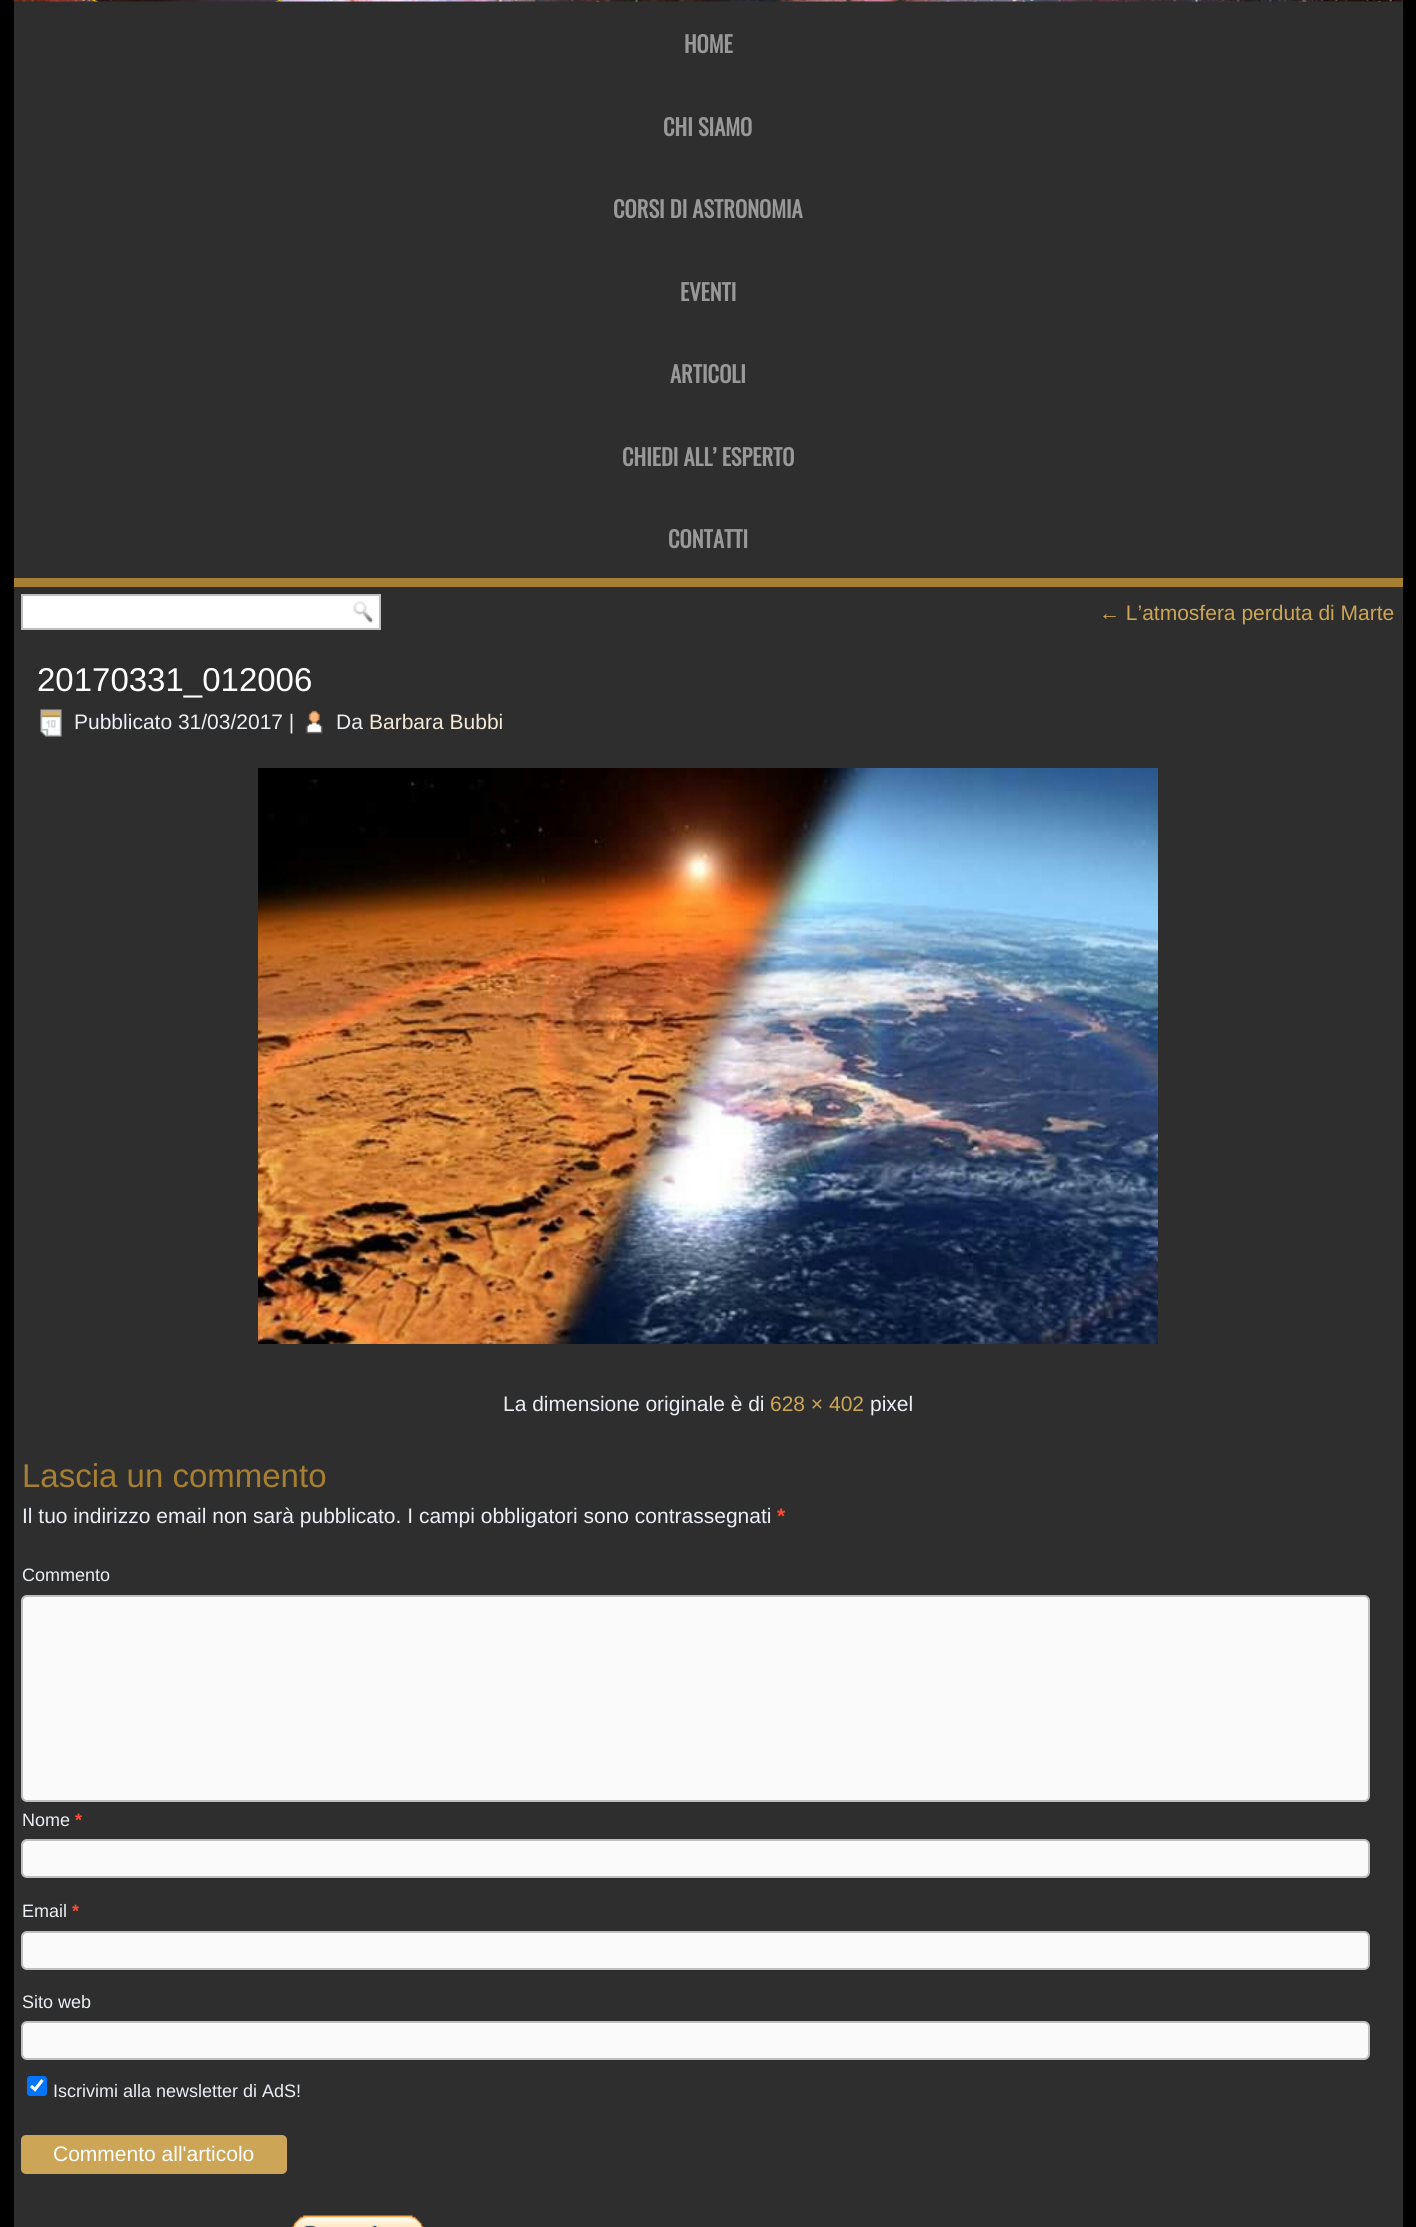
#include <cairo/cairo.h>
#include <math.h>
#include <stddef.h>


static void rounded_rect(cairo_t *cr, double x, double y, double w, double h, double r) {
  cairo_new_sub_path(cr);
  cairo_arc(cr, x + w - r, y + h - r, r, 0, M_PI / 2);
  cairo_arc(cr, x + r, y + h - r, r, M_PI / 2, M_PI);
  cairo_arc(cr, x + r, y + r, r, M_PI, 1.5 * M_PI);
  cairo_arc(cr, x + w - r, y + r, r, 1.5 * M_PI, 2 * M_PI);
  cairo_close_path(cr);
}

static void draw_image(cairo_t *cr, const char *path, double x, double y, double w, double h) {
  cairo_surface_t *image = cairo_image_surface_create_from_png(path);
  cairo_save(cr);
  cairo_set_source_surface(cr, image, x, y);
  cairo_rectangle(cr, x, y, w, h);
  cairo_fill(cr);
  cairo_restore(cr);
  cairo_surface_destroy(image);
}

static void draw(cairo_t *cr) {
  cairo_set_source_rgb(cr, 0, 0, 0);
  cairo_paint(cr);
  cairo_set_source_rgb(cr, 46 / 255.0, 46 / 255.0, 46 / 255.0);
  cairo_rectangle(cr, 14, 0, 1389, 2227);
  cairo_fill(cr);
  draw_image(cr, "images/1.png", 13, 0, 1390, 2);
  cairo_set_source_rgb(cr, 166 / 255.0, 127 / 255.0, 50 / 255.0);
  cairo_rectangle(cr, 14, 578, 1389, 9);
  cairo_fill(cr);
  cairo_set_source_rgb(cr, 1, 1, 1);
  cairo_rectangle(cr, 22, 595, 358, 34);
  cairo_fill_preserve(cr);
  cairo_set_source_rgb(cr, 191 / 255.0, 191 / 255.0, 191 / 255.0);
  cairo_stroke(cr);
  draw_image(cr, "images/2.png", 353, 601, 21, 22);
  draw_image(cr, "images/3.png", 40, 709, 22, 28);
  draw_image(cr, "images/4.png", 305, 710, 18, 24);
  draw_image(cr, "images/5.png", 258, 768, 900, 576);
  cairo_set_source_rgb(cr, 250 / 255.0, 250 / 255.0, 250 / 255.0);
  rounded_rect(cr, 22, 1596, 1347, 205, 5);
  cairo_fill_preserve(cr);
  cairo_set_source_rgb(cr, 191 / 255.0, 191 / 255.0, 191 / 255.0);
  cairo_stroke(cr);
  cairo_set_source_rgb(cr, 250 / 255.0, 250 / 255.0, 250 / 255.0);
  rounded_rect(cr, 22, 1840, 1347, 37, 5);
  cairo_fill_preserve(cr);
  cairo_set_source_rgb(cr, 191 / 255.0, 191 / 255.0, 191 / 255.0);
  cairo_stroke(cr);
  cairo_set_source_rgb(cr, 250 / 255.0, 250 / 255.0, 250 / 255.0);
  rounded_rect(cr, 22, 1932, 1347, 37, 5);
  cairo_fill_preserve(cr);
  cairo_set_source_rgb(cr, 191 / 255.0, 191 / 255.0, 191 / 255.0);
  cairo_stroke(cr);
  cairo_set_source_rgb(cr, 250 / 255.0, 250 / 255.0, 250 / 255.0);
  rounded_rect(cr, 22, 2022, 1347, 37, 5);
  cairo_fill_preserve(cr);
  cairo_set_source_rgb(cr, 191 / 255.0, 191 / 255.0, 191 / 255.0);
  cairo_stroke(cr);
  cairo_set_source_rgb(cr, 0, 117 / 255.0, 1);
  rounded_rect(cr, 27, 2076, 20, 20, 3);
  cairo_fill(cr);
  cairo_new_path(cr);
  cairo_move_to(cr, 31, 2086);
  cairo_line_to(cr, 35, 2089.5);
  cairo_line_to(cr, 42.5, 2080);
  cairo_set_source_rgb(cr, 1, 1, 1);
  cairo_set_line_width(cr, 3.1);
  cairo_stroke(cr);
  cairo_set_source_rgb(cr, 205 / 255.0, 165 / 255.0, 86 / 255.0);
  rounded_rect(cr, 21, 2135, 266, 39, 5);
  cairo_fill(cr);
  draw_image(cr, "images/6.png", 292, 2215, 132, 12);
  cairo_select_font_face(cr, "Oswald", CAIRO_FONT_SLANT_NORMAL, CAIRO_FONT_WEIGHT_BOLD);
  cairo_set_font_size(cr, 22.5);
  cairo_set_source_rgb(cr, 153 / 255.0, 153 / 255.0, 153 / 255.0);
  cairo_move_to(cr, 684, 53);
  cairo_show_text(cr, "HOME");
  cairo_move_to(cr, 663, 136);
  cairo_show_text(cr, "CHI SIAMO");
  cairo_move_to(cr, 613, 218);
  cairo_show_text(cr, "CORSI DI ASTRONOMIA");
  cairo_move_to(cr, 680, 301);
  cairo_show_text(cr, "EVENTI");
  cairo_move_to(cr, 670, 383);
  cairo_show_text(cr, "ARTICOLI");
  cairo_move_to(cr, 622, 466);
  cairo_show_text(cr, "CHIEDI ALL’ ESPERTO");
  cairo_move_to(cr, 668, 548);
  cairo_show_text(cr, "CONTATTI");
  cairo_select_font_face(cr, "Liberation Sans", CAIRO_FONT_SLANT_NORMAL, CAIRO_FONT_WEIGHT_NORMAL);
  cairo_set_font_size(cr, 21);
  cairo_set_source_rgb(cr, 205 / 255.0, 165 / 255.0, 86 / 255.0);
  cairo_move_to(cr, 1099, 620);
  cairo_show_text(cr, "← L’atmosfera perduta di Marte");
  cairo_set_font_size(cr, 33);
  cairo_set_source_rgb(cr, 1, 1, 1);
  cairo_move_to(cr, 37, 691);
  cairo_show_text(cr, "20170331_012006");
  cairo_set_font_size(cr, 21);
  cairo_set_source_rgb(cr, 236 / 255.0, 240 / 255.0, 244 / 255.0);
  cairo_move_to(cr, 74, 729);
  cairo_show_text(cr, "Pubblicato 31/03/2017 |");
  cairo_move_to(cr, 336, 729);
  cairo_show_text(cr, "Da");
  cairo_set_source_rgb(cr, 243 / 255.0, 234 / 255.0, 216 / 255.0);
  cairo_move_to(cr, 369, 729);
  cairo_show_text(cr, "Barbara Bubbi");
  cairo_set_source_rgb(cr, 236 / 255.0, 240 / 255.0, 244 / 255.0);
  cairo_move_to(cr, 503, 1411);
  cairo_show_text(cr, "La dimensione originale è di");
  cairo_set_source_rgb(cr, 205 / 255.0, 165 / 255.0, 86 / 255.0);
  cairo_move_to(cr, 770, 1411);
  cairo_show_text(cr, "628 × 402");
  cairo_set_source_rgb(cr, 236 / 255.0, 240 / 255.0, 244 / 255.0);
  cairo_move_to(cr, 870, 1411);
  cairo_show_text(cr, "pixel");
  cairo_set_font_size(cr, 33);
  cairo_set_source_rgb(cr, 166 / 255.0, 127 / 255.0, 50 / 255.0);
  cairo_move_to(cr, 22, 1487);
  cairo_show_text(cr, "Lascia un commento");
  cairo_set_font_size(cr, 21);
  cairo_set_source_rgb(cr, 236 / 255.0, 240 / 255.0, 244 / 255.0);
  cairo_move_to(cr, 22, 1523);
  cairo_show_text(cr, "Il tuo indirizzo email non sarà pubblicato. I campi obbligatori sono contrassegnati");
  cairo_select_font_face(cr, "Liberation Sans", CAIRO_FONT_SLANT_NORMAL, CAIRO_FONT_WEIGHT_BOLD);
  cairo_set_source_rgb(cr, 1, 75 / 255.0, 51 / 255.0);
  cairo_move_to(cr, 777, 1523);
  cairo_show_text(cr, "*");
  cairo_select_font_face(cr, "Liberation Sans", CAIRO_FONT_SLANT_NORMAL, CAIRO_FONT_WEIGHT_NORMAL);
  cairo_set_font_size(cr, 18);
  cairo_set_source_rgb(cr, 236 / 255.0, 240 / 255.0, 244 / 255.0);
  cairo_move_to(cr, 22, 1581);
  cairo_show_text(cr, "Commento");
  cairo_move_to(cr, 22, 1826);
  cairo_show_text(cr, "Nome");
  cairo_select_font_face(cr, "Liberation Sans", CAIRO_FONT_SLANT_NORMAL, CAIRO_FONT_WEIGHT_BOLD);
  cairo_set_source_rgb(cr, 1, 75 / 255.0, 51 / 255.0);
  cairo_move_to(cr, 75, 1826);
  cairo_show_text(cr, "*");
  cairo_select_font_face(cr, "Liberation Sans", CAIRO_FONT_SLANT_NORMAL, CAIRO_FONT_WEIGHT_NORMAL);
  cairo_set_source_rgb(cr, 236 / 255.0, 240 / 255.0, 244 / 255.0);
  cairo_move_to(cr, 22, 1917);
  cairo_show_text(cr, "Email");
  cairo_select_font_face(cr, "Liberation Sans", CAIRO_FONT_SLANT_NORMAL, CAIRO_FONT_WEIGHT_BOLD);
  cairo_set_source_rgb(cr, 1, 75 / 255.0, 51 / 255.0);
  cairo_move_to(cr, 72, 1917);
  cairo_show_text(cr, "*");
  cairo_select_font_face(cr, "Liberation Sans", CAIRO_FONT_SLANT_NORMAL, CAIRO_FONT_WEIGHT_NORMAL);
  cairo_set_source_rgb(cr, 236 / 255.0, 240 / 255.0, 244 / 255.0);
  cairo_move_to(cr, 22, 2008);
  cairo_show_text(cr, "Sito web");
  cairo_move_to(cr, 53, 2097);
  cairo_show_text(cr, "Iscrivimi alla newsletter di AdS!");
  cairo_set_font_size(cr, 21);
  cairo_set_source_rgb(cr, 1, 1, 1);
  cairo_move_to(cr, 53, 2161);
  cairo_show_text(cr, "Commento all'articolo");
}

int main(void) {
  cairo_surface_t *surface = cairo_image_surface_create(CAIRO_FORMAT_RGB24, 1416, 2227);
  cairo_t *cr = cairo_create(surface);
  cairo_font_options_t *options = cairo_font_options_create();
  cairo_font_options_set_hint_metrics(options, CAIRO_HINT_METRICS_OFF);
  cairo_font_options_set_hint_style(options, CAIRO_HINT_STYLE_NONE);
  cairo_set_font_options(cr, options);
  cairo_set_miter_limit(cr, 4);
  draw(cr);
  cairo_surface_write_to_png(surface, "out.png");
  cairo_font_options_destroy(options);
  cairo_destroy(cr);
  cairo_surface_destroy(surface);
  return 0;
}
